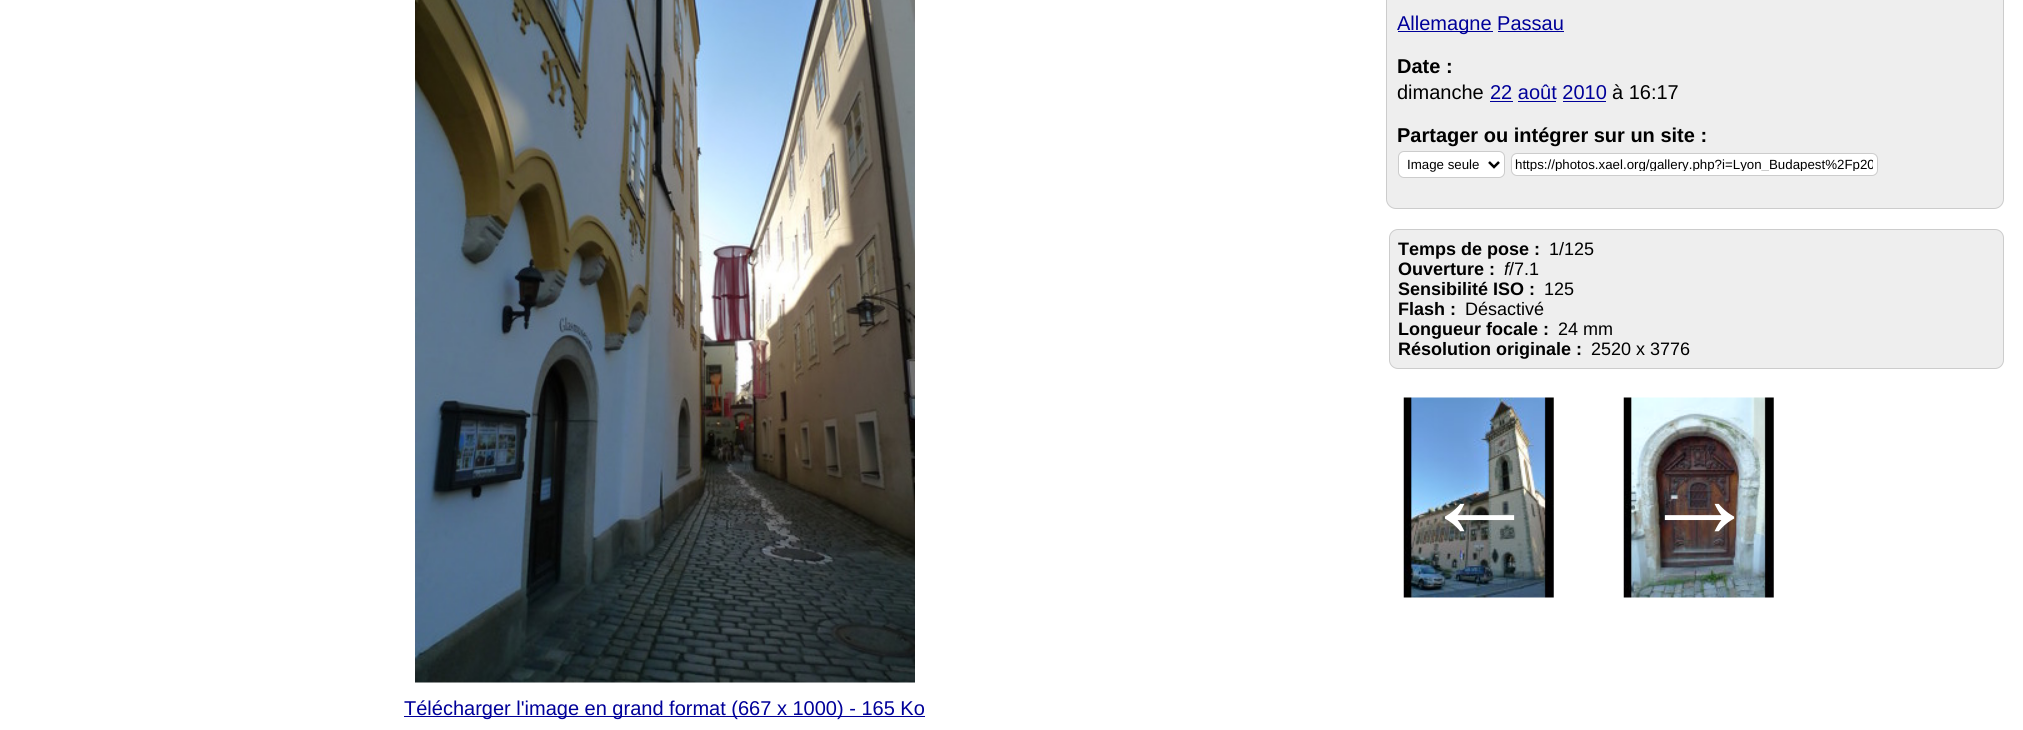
#include <cairo/cairo.h>
#include <math.h>
#include <stddef.h>


static void rounded_rect(cairo_t *cr, double x, double y, double w, double h, double r) {
  cairo_new_sub_path(cr);
  cairo_arc(cr, x + w - r, y + h - r, r, 0, M_PI / 2);
  cairo_arc(cr, x + r, y + h - r, r, M_PI / 2, M_PI);
  cairo_arc(cr, x + r, y + r, r, M_PI, 1.5 * M_PI);
  cairo_arc(cr, x + w - r, y + r, r, 1.5 * M_PI, 2 * M_PI);
  cairo_close_path(cr);
}

static void draw_image(cairo_t *cr, const char *path, double x, double y, double w, double h) {
  cairo_surface_t *image = cairo_image_surface_create_from_png(path);
  cairo_save(cr);
  cairo_set_source_surface(cr, image, x, y);
  cairo_rectangle(cr, x, y, w, h);
  cairo_fill(cr);
  cairo_restore(cr);
  cairo_surface_destroy(image);
}

static void draw(cairo_t *cr) {
  cairo_set_source_rgb(cr, 1, 1, 1);
  cairo_paint(cr);
  cairo_set_source_rgb(cr, 238 / 255.0, 238 / 255.0, 238 / 255.0);
  rounded_rect(cr, 1386.5, -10.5, 617, 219, 9.5);
  cairo_fill_preserve(cr);
  cairo_set_source_rgb(cr, 204 / 255.0, 204 / 255.0, 204 / 255.0);
  cairo_set_line_width(cr, 1);
  cairo_stroke(cr);
  cairo_set_source_rgb(cr, 0, 0, 153 / 255.0);
  cairo_rectangle(cr, 1398, 31, 95, 1);
  cairo_fill(cr);
  cairo_rectangle(cr, 1498, 31, 66, 1);
  cairo_fill(cr);
  cairo_rectangle(cr, 1490, 101, 23, 1);
  cairo_fill(cr);
  cairo_rectangle(cr, 1518, 101, 38, 1);
  cairo_fill(cr);
  cairo_rectangle(cr, 1563, 101, 43, 1);
  cairo_fill(cr);
  cairo_set_source_rgb(cr, 1, 1, 1);
  rounded_rect(cr, 1398.5, 151.5, 106, 26, 5.5);
  cairo_fill_preserve(cr);
  cairo_set_source_rgb(cr, 204 / 255.0, 204 / 255.0, 204 / 255.0);
  cairo_stroke(cr);
  cairo_new_path(cr);
  cairo_move_to(cr, 1489, 162);
  cairo_line_to(cr, 1494, 167);
  cairo_line_to(cr, 1499, 162);
  cairo_set_source_rgb(cr, 0, 0, 0);
  cairo_set_line_width(cr, 2.5);
  cairo_stroke(cr);
  cairo_set_source_rgb(cr, 1, 1, 1);
  rounded_rect(cr, 1511.5, 153.5, 366, 22, 5.5);
  cairo_fill_preserve(cr);
  cairo_set_source_rgb(cr, 204 / 255.0, 204 / 255.0, 204 / 255.0);
  cairo_set_line_width(cr, 1);
  cairo_stroke(cr);
  cairo_set_source_rgb(cr, 238 / 255.0, 238 / 255.0, 238 / 255.0);
  rounded_rect(cr, 1389.5, 229.5, 614, 139, 8.5);
  cairo_fill_preserve(cr);
  cairo_set_source_rgb(cr, 204 / 255.0, 204 / 255.0, 204 / 255.0);
  cairo_stroke(cr);
  draw_image(cr, "images/1.png", 1403, 397, 151, 201);
  draw_image(cr, "images/2.png", 1623, 397, 151, 201);
  draw_image(cr, "images/3.png", 415, 0, 500, 683);
  cairo_set_source_rgb(cr, 0, 0, 153 / 255.0);
  cairo_rectangle(cr, 404, 716, 521, 1);
  cairo_fill(cr);
  cairo_select_font_face(cr, "Liberation Sans", CAIRO_FONT_SLANT_NORMAL, CAIRO_FONT_WEIGHT_NORMAL);
  cairo_set_font_size(cr, 20);
  cairo_move_to(cr, 1397, 30);
  cairo_show_text(cr, "Allemagne Passau");
  cairo_select_font_face(cr, "Liberation Sans", CAIRO_FONT_SLANT_NORMAL, CAIRO_FONT_WEIGHT_BOLD);
  cairo_set_source_rgb(cr, 0, 0, 0);
  cairo_move_to(cr, 1397, 73);
  cairo_show_text(cr, "Date :");
  cairo_select_font_face(cr, "Liberation Sans", CAIRO_FONT_SLANT_NORMAL, CAIRO_FONT_WEIGHT_NORMAL);
  cairo_move_to(cr, 1397, 99);
  cairo_show_text(cr, "dimanche");
  cairo_set_source_rgb(cr, 0, 0, 153 / 255.0);
  cairo_move_to(cr, 1490, 99);
  cairo_show_text(cr, "22 août 2010");
  cairo_set_source_rgb(cr, 0, 0, 0);
  cairo_move_to(cr, 1612, 99);
  cairo_show_text(cr, "à 16:17");
  cairo_select_font_face(cr, "Liberation Sans", CAIRO_FONT_SLANT_NORMAL, CAIRO_FONT_WEIGHT_BOLD);
  cairo_move_to(cr, 1397, 142);
  cairo_show_text(cr, "Partager ou intégrer sur un site :");
  cairo_select_font_face(cr, "Liberation Sans", CAIRO_FONT_SLANT_NORMAL, CAIRO_FONT_WEIGHT_NORMAL);
  cairo_set_font_size(cr, 13.3);
  cairo_move_to(cr, 1407, 169);
  cairo_show_text(cr, "Image seule");
  cairo_save(cr);
  cairo_rectangle(cr, 1515, 156, 358, 15);
  cairo_clip(cr);
  cairo_move_to(cr, 1515, 169);
  cairo_show_text(cr, "https://photos.xael.org/gallery.php?i=Lyon_Budapest%2Fp20");
  cairo_restore(cr);
  cairo_select_font_face(cr, "Liberation Sans", CAIRO_FONT_SLANT_NORMAL, CAIRO_FONT_WEIGHT_BOLD);
  cairo_set_font_size(cr, 18);
  cairo_move_to(cr, 1398, 255);
  cairo_show_text(cr, "Temps de pose :");
  cairo_select_font_face(cr, "Liberation Sans", CAIRO_FONT_SLANT_NORMAL, CAIRO_FONT_WEIGHT_NORMAL);
  cairo_move_to(cr, 1549, 255);
  cairo_show_text(cr, "1/125");
  cairo_select_font_face(cr, "Liberation Sans", CAIRO_FONT_SLANT_NORMAL, CAIRO_FONT_WEIGHT_BOLD);
  cairo_move_to(cr, 1398, 275);
  cairo_show_text(cr, "Ouverture :");
  cairo_select_font_face(cr, "Liberation Sans", CAIRO_FONT_SLANT_ITALIC, CAIRO_FONT_WEIGHT_NORMAL);
  cairo_move_to(cr, 1504, 275);
  cairo_show_text(cr, "f");
  cairo_select_font_face(cr, "Liberation Sans", CAIRO_FONT_SLANT_NORMAL, CAIRO_FONT_WEIGHT_NORMAL);
  cairo_move_to(cr, 1509, 275);
  cairo_show_text(cr, "/7.1");
  cairo_select_font_face(cr, "Liberation Sans", CAIRO_FONT_SLANT_NORMAL, CAIRO_FONT_WEIGHT_BOLD);
  cairo_move_to(cr, 1398, 295);
  cairo_show_text(cr, "Sensibilité ISO :");
  cairo_select_font_face(cr, "Liberation Sans", CAIRO_FONT_SLANT_NORMAL, CAIRO_FONT_WEIGHT_NORMAL);
  cairo_move_to(cr, 1544, 295);
  cairo_show_text(cr, "125");
  cairo_select_font_face(cr, "Liberation Sans", CAIRO_FONT_SLANT_NORMAL, CAIRO_FONT_WEIGHT_BOLD);
  cairo_move_to(cr, 1398, 315);
  cairo_show_text(cr, "Flash :");
  cairo_select_font_face(cr, "Liberation Sans", CAIRO_FONT_SLANT_NORMAL, CAIRO_FONT_WEIGHT_NORMAL);
  cairo_move_to(cr, 1465, 315);
  cairo_show_text(cr, "Désactivé");
  cairo_select_font_face(cr, "Liberation Sans", CAIRO_FONT_SLANT_NORMAL, CAIRO_FONT_WEIGHT_BOLD);
  cairo_move_to(cr, 1398, 335);
  cairo_show_text(cr, "Longueur focale :");
  cairo_select_font_face(cr, "Liberation Sans", CAIRO_FONT_SLANT_NORMAL, CAIRO_FONT_WEIGHT_NORMAL);
  cairo_move_to(cr, 1558, 335);
  cairo_show_text(cr, "24 mm");
  cairo_select_font_face(cr, "Liberation Sans", CAIRO_FONT_SLANT_NORMAL, CAIRO_FONT_WEIGHT_BOLD);
  cairo_move_to(cr, 1398, 355);
  cairo_show_text(cr, "Résolution originale :");
  cairo_select_font_face(cr, "Liberation Sans", CAIRO_FONT_SLANT_NORMAL, CAIRO_FONT_WEIGHT_NORMAL);
  cairo_move_to(cr, 1591, 355);
  cairo_show_text(cr, "2520 x 3776");
  cairo_set_font_size(cr, 117);
  cairo_set_source_rgb(cr, 1, 1, 1);
  cairo_move_to(cr, 1421, 537);
  cairo_show_text(cr, "←");
  cairo_move_to(cr, 1641, 537);
  cairo_show_text(cr, "→");
  cairo_set_font_size(cr, 20);
  cairo_set_source_rgb(cr, 0, 0, 153 / 255.0);
  cairo_move_to(cr, 404, 715);
  cairo_show_text(cr, "Télécharger l'image en grand format (667 x 1000) - 165 Ko");
}

int main(void) {
  cairo_surface_t *surface = cairo_image_surface_create(CAIRO_FORMAT_RGB24, 2023, 730);
  cairo_t *cr = cairo_create(surface);
  cairo_font_options_t *options = cairo_font_options_create();
  cairo_font_options_set_hint_metrics(options, CAIRO_HINT_METRICS_OFF);
  cairo_font_options_set_hint_style(options, CAIRO_HINT_STYLE_NONE);
  cairo_set_font_options(cr, options);
  cairo_set_miter_limit(cr, 4);
  draw(cr);
  cairo_surface_write_to_png(surface, "out.png");
  cairo_font_options_destroy(options);
  cairo_destroy(cr);
  cairo_surface_destroy(surface);
  return 0;
}
